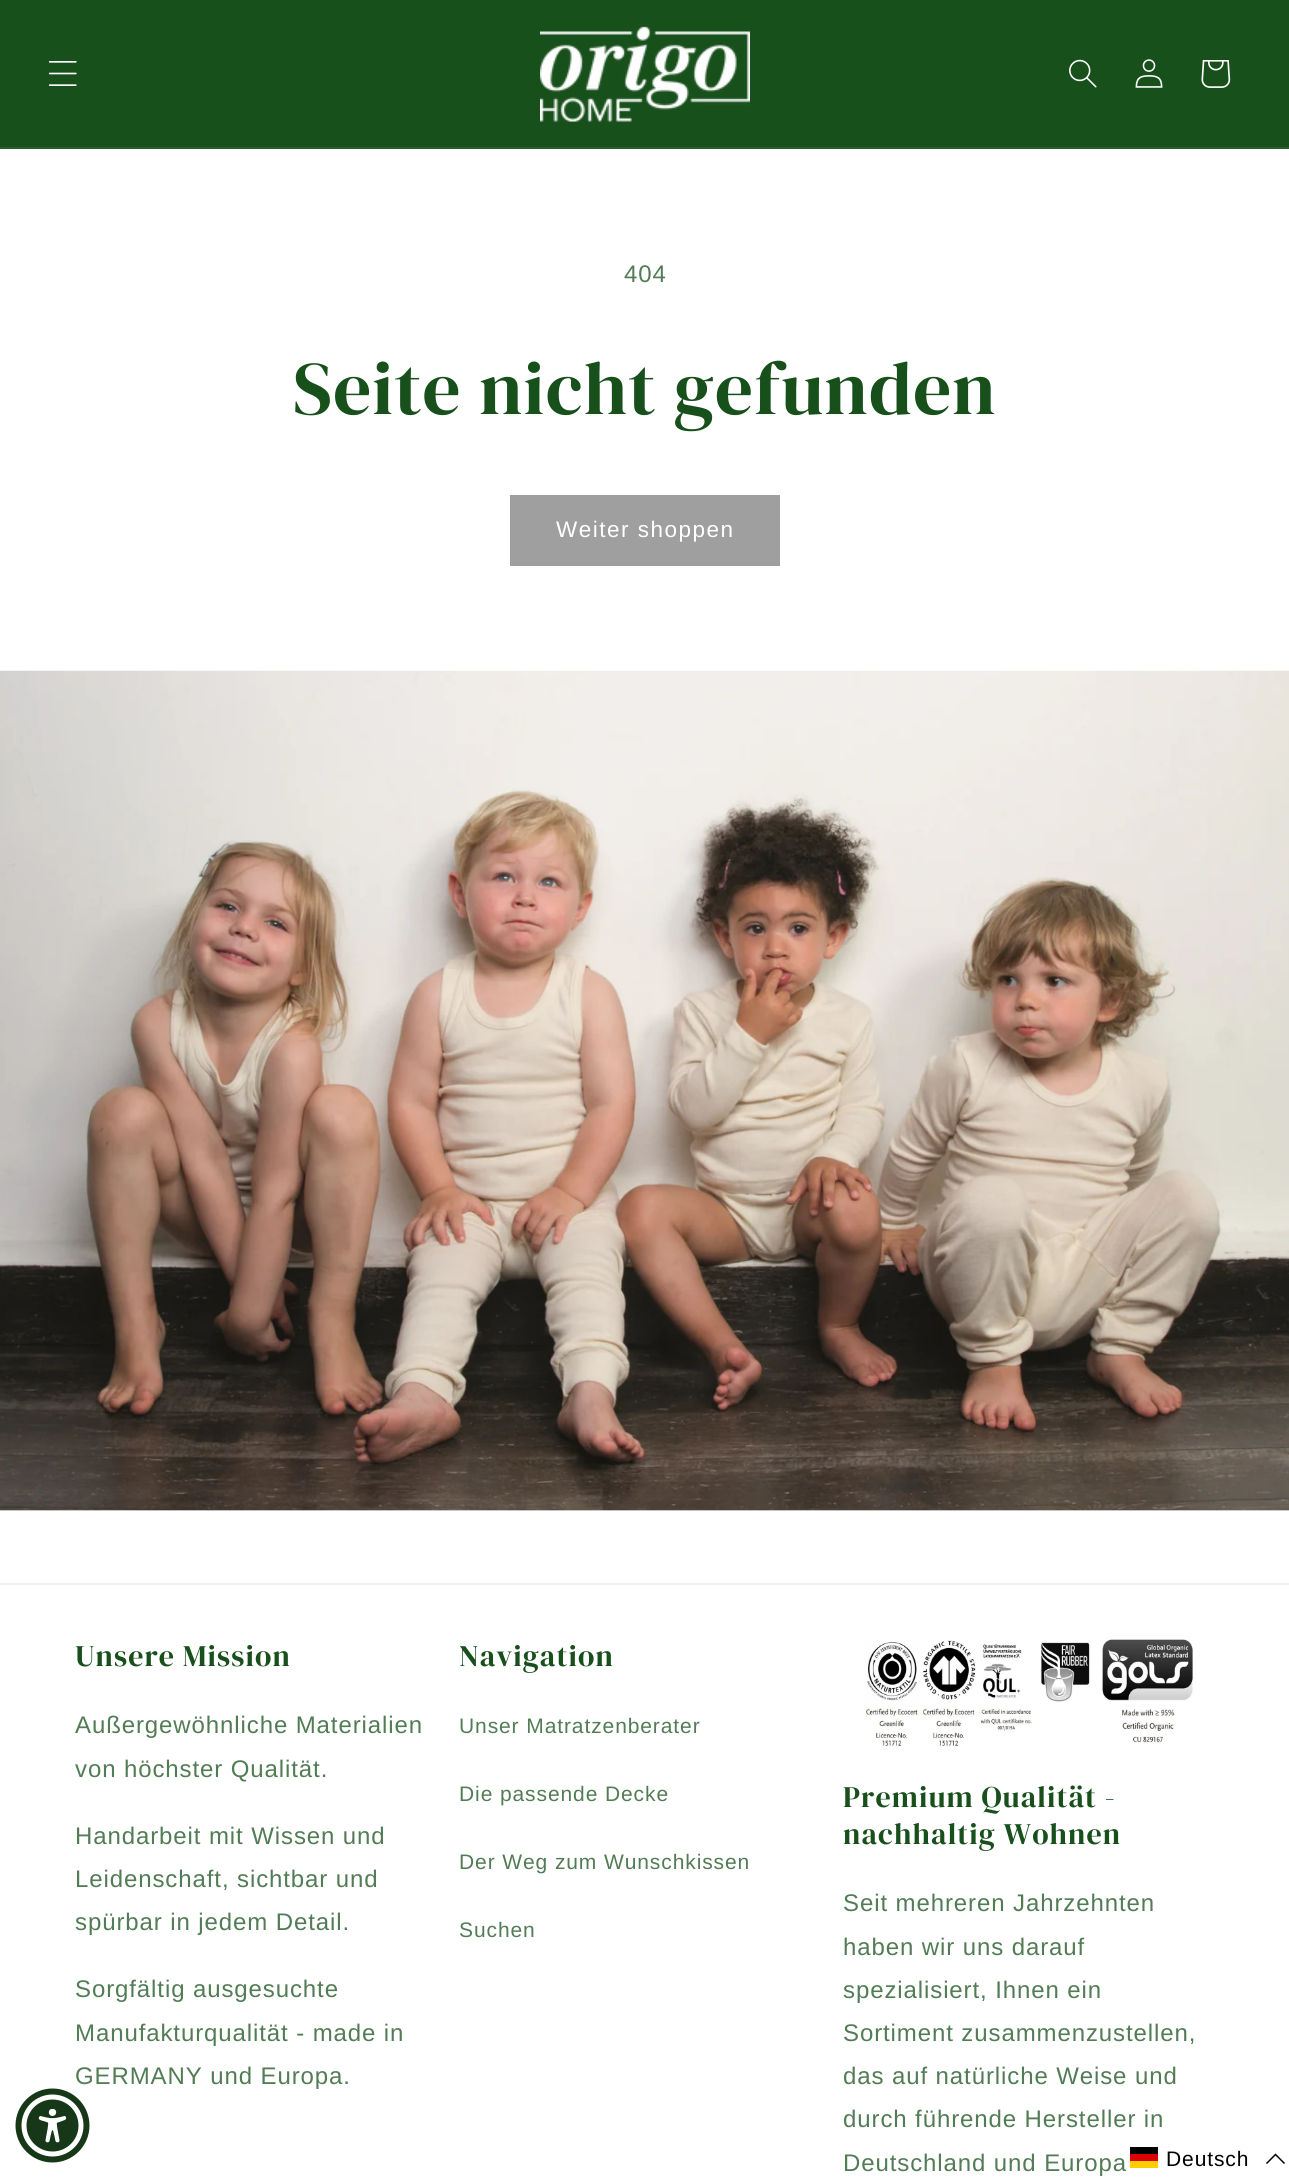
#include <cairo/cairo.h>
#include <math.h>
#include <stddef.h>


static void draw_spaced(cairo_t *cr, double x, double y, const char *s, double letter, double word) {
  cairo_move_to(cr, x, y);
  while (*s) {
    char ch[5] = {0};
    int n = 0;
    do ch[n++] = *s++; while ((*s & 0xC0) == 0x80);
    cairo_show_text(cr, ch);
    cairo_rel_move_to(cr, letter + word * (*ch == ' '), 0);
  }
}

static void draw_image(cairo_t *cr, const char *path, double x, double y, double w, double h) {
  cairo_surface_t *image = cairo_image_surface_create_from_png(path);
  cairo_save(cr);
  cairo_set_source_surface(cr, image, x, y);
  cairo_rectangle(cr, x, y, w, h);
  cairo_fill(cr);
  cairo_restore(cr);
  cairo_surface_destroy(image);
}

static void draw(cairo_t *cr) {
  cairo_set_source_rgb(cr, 1, 1, 1);
  cairo_paint(cr);
  cairo_set_source_rgb(cr, 24 / 255.0, 80 / 255.0, 28 / 255.0);
  cairo_rectangle(cr, 0, 0, 1289, 147);
  cairo_fill(cr);
  cairo_set_source_rgb(cr, 42 / 255.0, 94 / 255.0, 46 / 255.0);
  cairo_rectangle(cr, 0, 147, 1289, 2);
  cairo_fill(cr);
  draw_image(cr, "images/1.png", 48, 61, 29, 25);
  draw_image(cr, "images/2.png", 540, 26, 210, 96);
  draw_image(cr, "images/3.png", 1069, 59, 28, 29);
  draw_image(cr, "images/4.png", 1135, 59, 28, 29);
  draw_image(cr, "images/5.png", 1201, 60, 30, 28);
  cairo_set_source_rgb(cr, 159 / 255.0, 159 / 255.0, 159 / 255.0);
  cairo_rectangle(cr, 510, 495, 270, 71);
  cairo_fill(cr);
  cairo_set_source_rgb(cr, 233 / 255.0, 238 / 255.0, 233 / 255.0);
  cairo_rectangle(cr, 0, 1510, 1289, 1);
  cairo_fill(cr);
  draw_image(cr, "images/6.png", 0, 670, 1289, 841);
  cairo_set_source_rgb(cr, 237 / 255.0, 241 / 255.0, 237 / 255.0);
  cairo_rectangle(cr, 0, 1583, 1289, 2);
  cairo_fill(cr);
  draw_image(cr, "images/8.png", 865, 1639, 328, 108);
  cairo_set_source_rgb(cr, 1, 206 / 255.0, 0);
  cairo_rectangle(cr, 1130, 2161, 28, 7);
  cairo_fill(cr);
  cairo_set_source_rgb(cr, 0, 0, 0);
  cairo_rectangle(cr, 1130, 2147, 28, 7);
  cairo_fill(cr);
  cairo_set_source_rgb(cr, 221 / 255.0, 0, 0);
  cairo_rectangle(cr, 1130, 2154, 28, 7);
  cairo_fill(cr);
  cairo_new_path(cr);
  cairo_move_to(cr, 1284.5, 2163.5);
  cairo_line_to(cr, 1275.5, 2154.5);
  cairo_line_to(cr, 1266.5, 2163.5);
  cairo_set_source_rgb(cr, 0, 0, 0);
  cairo_set_line_width(cr, 1.5);
  cairo_stroke(cr);
  cairo_select_font_face(cr, "Liberation Sans", CAIRO_FONT_SLANT_NORMAL, CAIRO_FONT_WEIGHT_NORMAL);
  cairo_set_font_size(cr, 24);
  cairo_set_source_rgb(cr, 82 / 255.0, 124 / 255.0, 85 / 255.0);
  draw_spaced(cr, 624, 282, "404", 0.9, 0);
  cairo_select_font_face(cr, "DM Serif Display", CAIRO_FONT_SLANT_NORMAL, CAIRO_FONT_WEIGHT_NORMAL);
  cairo_set_font_size(cr, 75);
  cairo_set_source_rgb(cr, 24 / 255.0, 80 / 255.0, 28 / 255.0);
  draw_spaced(cr, 293, 414, "Seite nicht gefunden", 1.1, 0);
  cairo_select_font_face(cr, "Liberation Sans", CAIRO_FONT_SLANT_NORMAL, CAIRO_FONT_WEIGHT_NORMAL);
  cairo_set_font_size(cr, 22.5);
  cairo_set_source_rgb(cr, 1, 1, 1);
  draw_spaced(cr, 556, 537, "Weiter shoppen", 1.5, 0);
  cairo_select_font_face(cr, "DM Serif Display", CAIRO_FONT_SLANT_NORMAL, CAIRO_FONT_WEIGHT_NORMAL);
  cairo_set_font_size(cr, 30);
  cairo_set_source_rgb(cr, 24 / 255.0, 80 / 255.0, 28 / 255.0);
  draw_spaced(cr, 75, 1666, "Unsere Mission", 1.1, 0);
  cairo_select_font_face(cr, "Liberation Sans", CAIRO_FONT_SLANT_NORMAL, CAIRO_FONT_WEIGHT_NORMAL);
  cairo_set_font_size(cr, 24);
  cairo_set_source_rgb(cr, 82 / 255.0, 124 / 255.0, 85 / 255.0);
  draw_spaced(cr, 75, 1733, "Außergewöhnliche Materialien", 0.9, 0);
  draw_spaced(cr, 75, 1777, "von höchster Qualität.", 0.9, 0);
  draw_spaced(cr, 75, 1844, "Handarbeit mit Wissen und", 0.9, 0);
  draw_spaced(cr, 75, 1887, "Leidenschaft, sichtbar und", 0.9, 0);
  draw_spaced(cr, 75, 1930, "spürbar in jedem Detail.", 0.9, 0);
  draw_spaced(cr, 75, 1997, "Sorgfältig ausgesuchte", 0.9, 0);
  draw_spaced(cr, 75, 2041, "Manufakturqualität - made in", 0.9, 0);
  draw_spaced(cr, 75, 2084, "GERMANY und Europa.", 0.9, 0);
  cairo_set_source_rgb(cr, 22 / 255.0, 56 / 255.0, 24 / 255.0);
  cairo_new_path(cr);
  cairo_arc(cr, 52.5, 2125.5, 37, 0, 2 * M_PI);
  cairo_fill(cr);
  cairo_set_source_rgb(cr, 1, 1, 1);
  cairo_arc(cr, 52.5, 2125.5, 31, 0, 2 * M_PI);
  cairo_fill(cr);
  cairo_set_source_rgb(cr, 22 / 255.0, 56 / 255.0, 24 / 255.0);
  cairo_arc(cr, 52.5, 2125.5, 26, 0, 2 * M_PI);
  cairo_fill(cr);
  draw_image(cr, "images/7.png", 38, 2109, 29, 34);
  cairo_select_font_face(cr, "DM Serif Display", CAIRO_FONT_SLANT_NORMAL, CAIRO_FONT_WEIGHT_NORMAL);
  cairo_set_font_size(cr, 30);
  cairo_set_source_rgb(cr, 24 / 255.0, 80 / 255.0, 28 / 255.0);
  draw_spaced(cr, 459, 1666, "Navigation", 1.1, 0);
  cairo_select_font_face(cr, "Liberation Sans", CAIRO_FONT_SLANT_NORMAL, CAIRO_FONT_WEIGHT_NORMAL);
  cairo_set_font_size(cr, 21);
  cairo_set_source_rgb(cr, 82 / 255.0, 124 / 255.0, 85 / 255.0);
  draw_spaced(cr, 459, 1733, "Unser Matratzenberater", 0.9, 0);
  draw_spaced(cr, 459, 1801, "Die passende Decke", 0.9, 0);
  draw_spaced(cr, 459, 1869, "Der Weg zum Wunschkissen", 0.9, 0);
  draw_spaced(cr, 459, 1937, "Suchen", 0.9, 0);
  cairo_select_font_face(cr, "DM Serif Display", CAIRO_FONT_SLANT_NORMAL, CAIRO_FONT_WEIGHT_NORMAL);
  cairo_set_font_size(cr, 30);
  cairo_set_source_rgb(cr, 24 / 255.0, 80 / 255.0, 28 / 255.0);
  draw_spaced(cr, 843, 1807, "Premium Qualität -", 1.1, 0);
  draw_spaced(cr, 843, 1844, "nachhaltig Wohnen", 1.1, 0);
  cairo_select_font_face(cr, "Liberation Sans", CAIRO_FONT_SLANT_NORMAL, CAIRO_FONT_WEIGHT_NORMAL);
  cairo_set_font_size(cr, 24);
  cairo_set_source_rgb(cr, 82 / 255.0, 124 / 255.0, 85 / 255.0);
  draw_spaced(cr, 843, 1911, "Seit mehreren Jahrzehnten", 0.9, 0);
  draw_spaced(cr, 843, 1955, "haben wir uns darauf", 0.9, 0);
  draw_spaced(cr, 843, 1998, "spezialisiert, Ihnen ein", 0.9, 0);
  draw_spaced(cr, 843, 2041, "Sortiment zusammenzustellen,", 0.9, 0);
  draw_spaced(cr, 843, 2084, "das auf natürliche Weise und", 0.9, 0);
  draw_spaced(cr, 843, 2127, "durch führende Hersteller in", 0.9, 0);
  draw_spaced(cr, 843, 2171, "Deutschland und Europa", 0.9, 0);
  cairo_set_font_size(cr, 21);
  cairo_set_source_rgb(cr, 0, 0, 0);
  draw_spaced(cr, 1166, 2166, "Deutsch", 0.9, 0);
}

int main(void) {
  cairo_surface_t *surface = cairo_image_surface_create(CAIRO_FORMAT_RGB24, 1289, 2178);
  cairo_t *cr = cairo_create(surface);
  cairo_font_options_t *options = cairo_font_options_create();
  cairo_font_options_set_hint_metrics(options, CAIRO_HINT_METRICS_OFF);
  cairo_font_options_set_hint_style(options, CAIRO_HINT_STYLE_NONE);
  cairo_set_font_options(cr, options);
  cairo_set_miter_limit(cr, 4);
  draw(cr);
  cairo_surface_write_to_png(surface, "out.png");
  cairo_font_options_destroy(options);
  cairo_destroy(cr);
  cairo_surface_destroy(surface);
  return 0;
}
